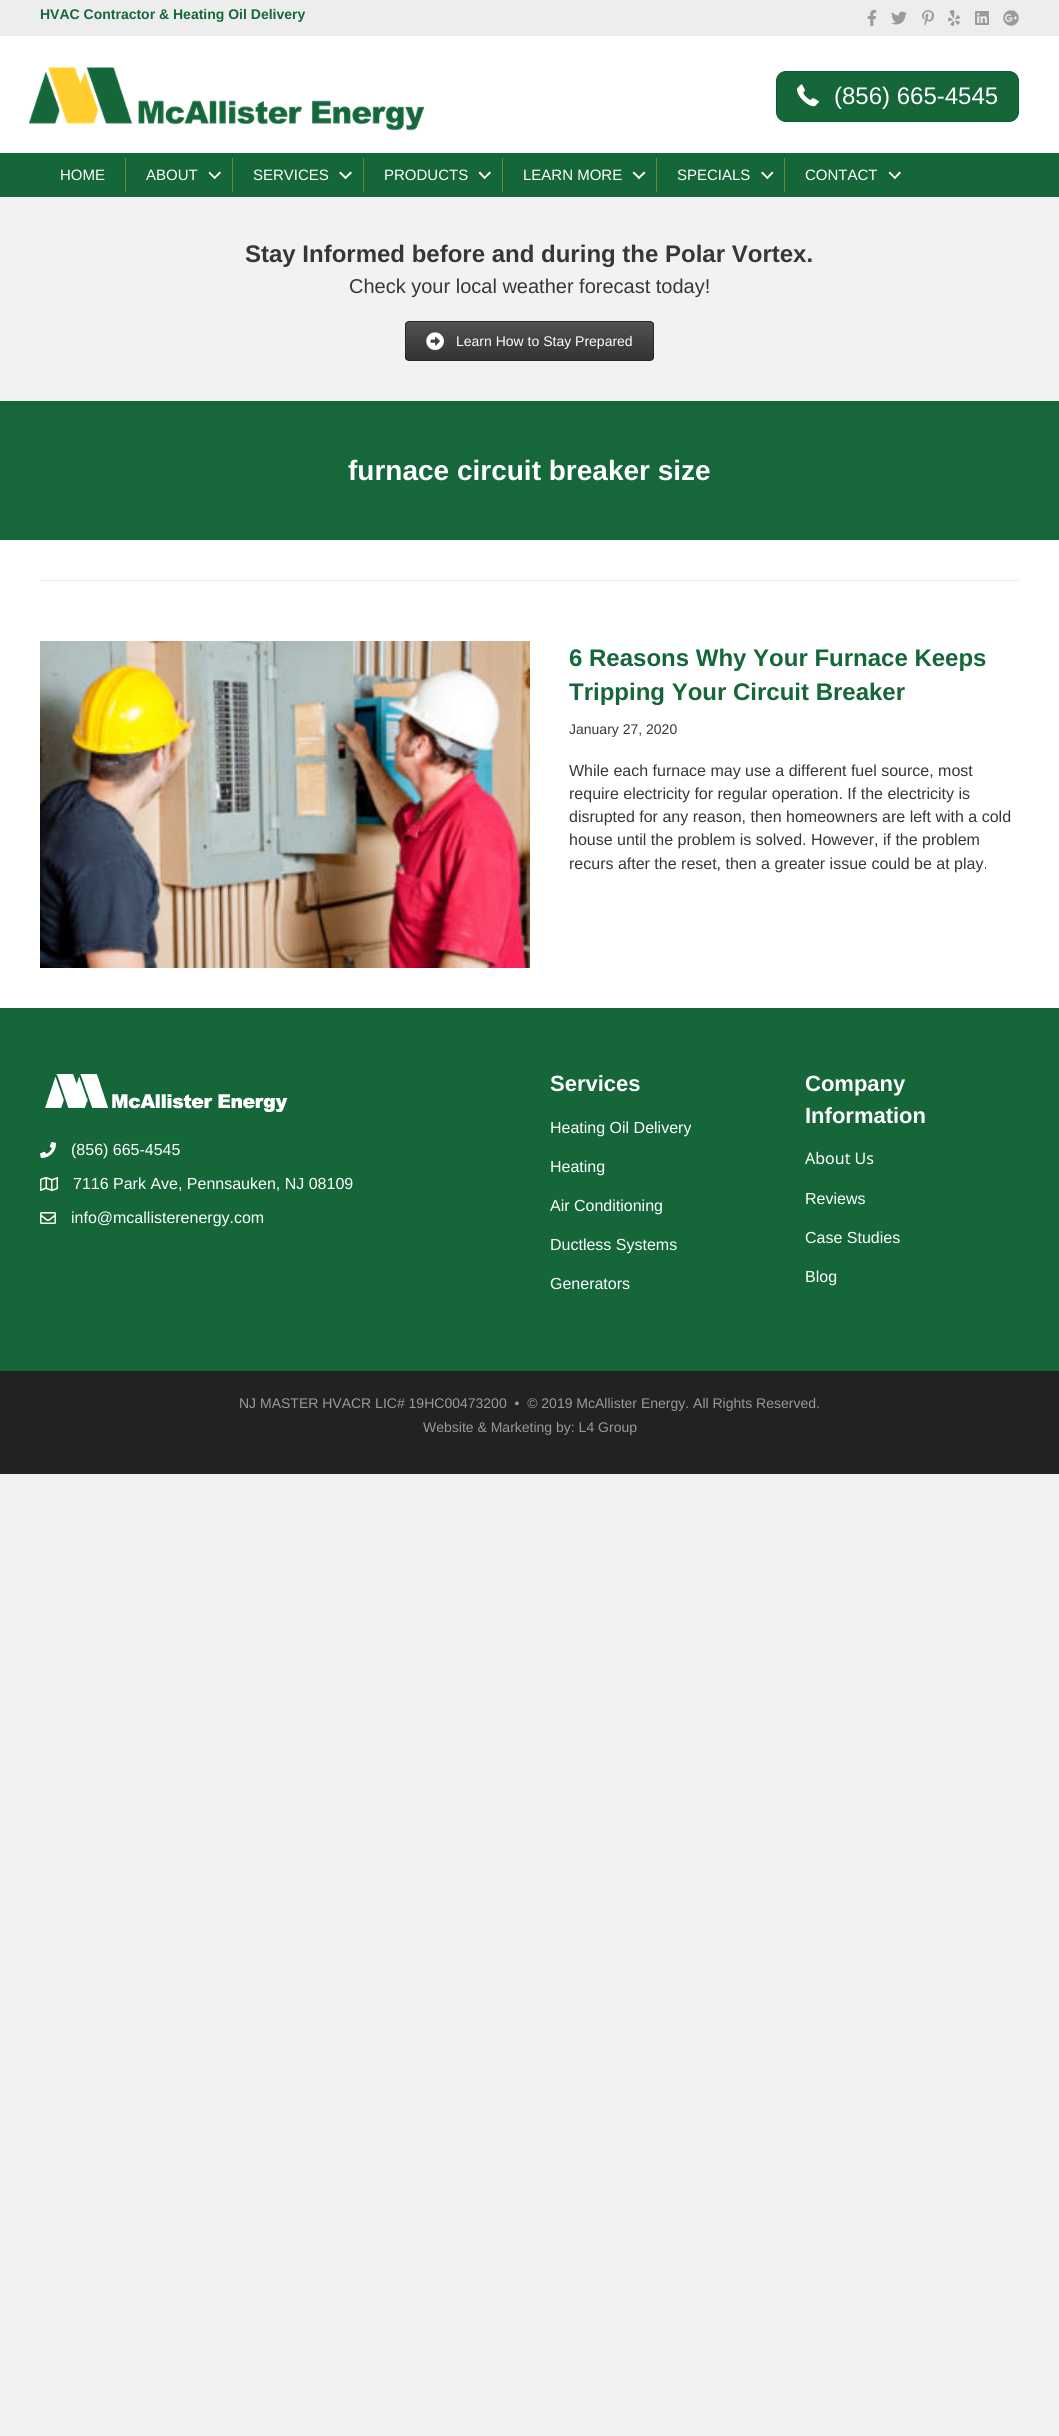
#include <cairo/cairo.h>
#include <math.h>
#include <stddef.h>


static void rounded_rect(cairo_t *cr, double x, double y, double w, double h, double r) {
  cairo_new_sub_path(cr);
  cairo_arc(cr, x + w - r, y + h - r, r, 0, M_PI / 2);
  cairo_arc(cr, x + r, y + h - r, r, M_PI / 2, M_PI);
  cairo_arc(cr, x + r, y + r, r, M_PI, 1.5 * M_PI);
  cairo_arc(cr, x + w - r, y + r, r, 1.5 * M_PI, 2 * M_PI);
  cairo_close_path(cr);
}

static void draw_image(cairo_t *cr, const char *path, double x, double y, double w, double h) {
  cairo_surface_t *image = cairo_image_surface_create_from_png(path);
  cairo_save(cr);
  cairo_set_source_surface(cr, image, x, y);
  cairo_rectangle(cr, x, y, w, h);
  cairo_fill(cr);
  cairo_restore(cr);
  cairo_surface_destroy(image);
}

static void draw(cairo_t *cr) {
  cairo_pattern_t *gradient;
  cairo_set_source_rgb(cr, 242 / 255.0, 242 / 255.0, 242 / 255.0);
  cairo_paint(cr);
  cairo_set_source_rgb(cr, 237 / 255.0, 237 / 255.0, 237 / 255.0);
  cairo_rectangle(cr, 0, 0, 1059, 36);
  cairo_fill(cr);
  draw_image(cr, "images/1.png", 867, 10, 10, 16);
  draw_image(cr, "images/2.png", 891, 11, 16, 14);
  draw_image(cr, "images/3.png", 922, 10, 12, 16);
  draw_image(cr, "images/4.png", 948, 10, 12, 16);
  draw_image(cr, "images/5.png", 975, 11, 14, 14);
  draw_image(cr, "images/6.png", 1003, 10, 16, 16);
  cairo_set_source_rgb(cr, 1, 1, 1);
  cairo_rectangle(cr, 0, 36, 1059, 117);
  cairo_fill(cr);
  draw_image(cr, "images/7.png", 28, 67, 397, 64);
  cairo_set_source_rgb(cr, 21 / 255.0, 103 / 255.0, 58 / 255.0);
  rounded_rect(cr, 776.5, 71.5, 242, 50, 9.5);
  cairo_fill_preserve(cr);
  cairo_set_source_rgb(cr, 9 / 255.0, 91 / 255.0, 46 / 255.0);
  cairo_set_line_width(cr, 1);
  cairo_stroke(cr);
  draw_image(cr, "images/8.png", 797, 84, 22, 23);
  cairo_set_source_rgb(cr, 21 / 255.0, 103 / 255.0, 58 / 255.0);
  cairo_rectangle(cr, 0, 153, 1059, 44);
  cairo_fill(cr);
  cairo_set_source_rgb(cr, 100 / 255.0, 138 / 255.0, 54 / 255.0);
  cairo_rectangle(cr, 125, 158, 1, 34);
  cairo_fill(cr);
  cairo_set_source_rgb(cr, 1, 1, 1);
  cairo_new_path(cr);
  cairo_move_to(cr, 219.5, 171.5);
  cairo_line_to(cr, 221, 173);
  cairo_line_to(cr, 214.5, 179);
  cairo_line_to(cr, 213.5, 178);
  cairo_close_path(cr);
  cairo_fill(cr);
  cairo_new_path(cr);
  cairo_move_to(cr, 209.5, 171.5);
  cairo_line_to(cr, 216, 178);
  cairo_line_to(cr, 214.5, 179);
  cairo_line_to(cr, 208.5, 173);
  cairo_close_path(cr);
  cairo_fill(cr);
  cairo_set_source_rgb(cr, 100 / 255.0, 138 / 255.0, 54 / 255.0);
  cairo_rectangle(cr, 232, 158, 1, 34);
  cairo_fill(cr);
  cairo_set_source_rgb(cr, 1, 1, 1);
  cairo_new_path(cr);
  cairo_move_to(cr, 350.5, 171.5);
  cairo_line_to(cr, 352, 173);
  cairo_line_to(cr, 345.5, 179);
  cairo_line_to(cr, 344, 178);
  cairo_close_path(cr);
  cairo_fill(cr);
  cairo_new_path(cr);
  cairo_move_to(cr, 340.5, 171.5);
  cairo_line_to(cr, 347, 178);
  cairo_line_to(cr, 345.5, 179);
  cairo_line_to(cr, 339, 173);
  cairo_close_path(cr);
  cairo_fill(cr);
  cairo_set_source_rgb(cr, 100 / 255.0, 138 / 255.0, 54 / 255.0);
  cairo_rectangle(cr, 363, 158, 1, 34);
  cairo_fill(cr);
  cairo_set_source_rgb(cr, 1, 1, 1);
  cairo_new_path(cr);
  cairo_move_to(cr, 489.5, 171.5);
  cairo_line_to(cr, 491, 173);
  cairo_line_to(cr, 484.5, 179);
  cairo_line_to(cr, 483.5, 178);
  cairo_close_path(cr);
  cairo_fill(cr);
  cairo_new_path(cr);
  cairo_move_to(cr, 480, 171.5);
  cairo_line_to(cr, 486, 178);
  cairo_line_to(cr, 484.5, 179);
  cairo_line_to(cr, 478.5, 173);
  cairo_close_path(cr);
  cairo_fill(cr);
  cairo_set_source_rgb(cr, 100 / 255.0, 138 / 255.0, 54 / 255.0);
  cairo_rectangle(cr, 502, 158, 1, 34);
  cairo_fill(cr);
  cairo_set_source_rgb(cr, 1, 1, 1);
  cairo_new_path(cr);
  cairo_move_to(cr, 644, 171.5);
  cairo_line_to(cr, 645.5, 173);
  cairo_line_to(cr, 639, 179);
  cairo_line_to(cr, 637.5, 178);
  cairo_close_path(cr);
  cairo_fill(cr);
  cairo_new_path(cr);
  cairo_move_to(cr, 634, 171.5);
  cairo_line_to(cr, 640.5, 178);
  cairo_line_to(cr, 639, 179);
  cairo_line_to(cr, 632.5, 173);
  cairo_close_path(cr);
  cairo_fill(cr);
  cairo_set_source_rgb(cr, 100 / 255.0, 138 / 255.0, 54 / 255.0);
  cairo_rectangle(cr, 656, 158, 1, 34);
  cairo_fill(cr);
  cairo_set_source_rgb(cr, 1, 1, 1);
  cairo_new_path(cr);
  cairo_move_to(cr, 772, 171.5);
  cairo_line_to(cr, 773.5, 173);
  cairo_line_to(cr, 767.5, 179);
  cairo_line_to(cr, 766, 178);
  cairo_close_path(cr);
  cairo_fill(cr);
  cairo_new_path(cr);
  cairo_move_to(cr, 762.5, 171.5);
  cairo_line_to(cr, 768.5, 178);
  cairo_line_to(cr, 767.5, 179);
  cairo_line_to(cr, 761, 173);
  cairo_close_path(cr);
  cairo_fill(cr);
  cairo_set_source_rgb(cr, 100 / 255.0, 138 / 255.0, 54 / 255.0);
  cairo_rectangle(cr, 784, 158, 1, 34);
  cairo_fill(cr);
  cairo_set_source_rgb(cr, 1, 1, 1);
  cairo_new_path(cr);
  cairo_move_to(cr, 899.5, 171.5);
  cairo_line_to(cr, 901, 173);
  cairo_line_to(cr, 895, 179);
  cairo_line_to(cr, 893.5, 178);
  cairo_close_path(cr);
  cairo_fill(cr);
  cairo_new_path(cr);
  cairo_move_to(cr, 890, 171.5);
  cairo_line_to(cr, 896, 178);
  cairo_line_to(cr, 895, 179);
  cairo_line_to(cr, 888.5, 173);
  cairo_close_path(cr);
  cairo_fill(cr);
  cairo_save(cr);
  rounded_rect(cr, 405, 321, 249, 40, 4);
  cairo_clip(cr);
  gradient = cairo_pattern_create_linear(530, 322, 530, 360);
  cairo_pattern_add_color_stop_rgba(gradient, 0, 81 / 255.0, 81 / 255.0, 81 / 255.0, 1);
  cairo_pattern_add_color_stop_rgba(gradient, 1, 51 / 255.0, 51 / 255.0, 51 / 255.0, 1);
  cairo_set_source(cr, gradient);
  cairo_pattern_destroy(gradient);
  cairo_rectangle(cr, 405, 322, 249, 38);
  cairo_fill(cr);
  cairo_restore(cr);
  rounded_rect(cr, 405.5, 321.5, 248, 39, 3.5);
  cairo_set_source_rgb(cr, 39 / 255.0, 39 / 255.0, 39 / 255.0);
  cairo_stroke(cr);
  draw_image(cr, "images/9.png", 426, 332, 18, 18);
  cairo_set_source_rgb(cr, 1, 1, 1);
  cairo_rectangle(cr, 0, 540, 1059, 468);
  cairo_fill(cr);
  cairo_set_source_rgb(cr, 22 / 255.0, 103 / 255.0, 58 / 255.0);
  cairo_rectangle(cr, 0, 401, 1059, 139);
  cairo_fill(cr);
  cairo_set_source_rgb(cr, 234 / 255.0, 234 / 255.0, 234 / 255.0);
  cairo_rectangle(cr, 40, 580, 979, 1);
  cairo_fill(cr);
  draw_image(cr, "images/10.png", 40, 641, 490, 327);
  cairo_set_source_rgb(cr, 21 / 255.0, 103 / 255.0, 58 / 255.0);
  cairo_rectangle(cr, 0, 1008, 1059, 363);
  cairo_fill(cr);
  draw_image(cr, "images/11.png", 45, 1074, 243, 38);
  draw_image(cr, "images/12.png", 40, 1142, 16, 16);
  draw_image(cr, "images/13.png", 40, 1177, 18, 14);
  draw_image(cr, "images/14.png", 40, 1212, 16, 12);
  cairo_set_source_rgb(cr, 34 / 255.0, 34 / 255.0, 34 / 255.0);
  cairo_rectangle(cr, 0, 1371, 1059, 103);
  cairo_fill(cr);
  cairo_select_font_face(cr, "Liberation Sans", CAIRO_FONT_SLANT_NORMAL, CAIRO_FONT_WEIGHT_BOLD);
  cairo_set_font_size(cr, 14);
  cairo_set_source_rgb(cr, 21 / 255.0, 103 / 255.0, 58 / 255.0);
  cairo_move_to(cr, 40, 19);
  cairo_show_text(cr, "HVAC Contractor & Heating Oil Delivery");
  cairo_select_font_face(cr, "Liberation Sans", CAIRO_FONT_SLANT_NORMAL, CAIRO_FONT_WEIGHT_NORMAL);
  cairo_set_font_size(cr, 24);
  cairo_set_source_rgb(cr, 1, 1, 1);
  cairo_move_to(cr, 834, 104);
  cairo_show_text(cr, "(856) 665-4545");
  cairo_set_font_size(cr, 15);
  cairo_move_to(cr, 60, 180);
  cairo_show_text(cr, "HOME");
  cairo_move_to(cr, 146, 180);
  cairo_show_text(cr, "ABOUT");
  cairo_move_to(cr, 253, 180);
  cairo_show_text(cr, "SERVICES");
  cairo_move_to(cr, 384, 180);
  cairo_show_text(cr, "PRODUCTS");
  cairo_move_to(cr, 523, 180);
  cairo_show_text(cr, "LEARN MORE");
  cairo_move_to(cr, 677, 180);
  cairo_show_text(cr, "SPECIALS");
  cairo_move_to(cr, 805, 180);
  cairo_show_text(cr, "CONTACT");
  cairo_select_font_face(cr, "Liberation Sans", CAIRO_FONT_SLANT_NORMAL, CAIRO_FONT_WEIGHT_BOLD);
  cairo_set_font_size(cr, 24);
  cairo_set_source_rgb(cr, 55 / 255.0, 55 / 255.0, 55 / 255.0);
  cairo_move_to(cr, 245, 262);
  cairo_show_text(cr, "Stay Informed before and during the Polar Vortex.");
  cairo_select_font_face(cr, "Liberation Sans", CAIRO_FONT_SLANT_NORMAL, CAIRO_FONT_WEIGHT_NORMAL);
  cairo_set_font_size(cr, 20);
  cairo_move_to(cr, 349, 293);
  cairo_show_text(cr, "Check your local weather forecast today!");
  cairo_set_font_size(cr, 14);
  cairo_set_source_rgb(cr, 1, 1, 1);
  cairo_move_to(cr, 456, 346);
  cairo_show_text(cr, "Learn How to Stay Prepared");
  cairo_select_font_face(cr, "Liberation Sans", CAIRO_FONT_SLANT_NORMAL, CAIRO_FONT_WEIGHT_BOLD);
  cairo_set_font_size(cr, 28);
  cairo_move_to(cr, 348, 480);
  cairo_show_text(cr, "furnace circuit breaker size");
  cairo_set_font_size(cr, 24);
  cairo_set_source_rgb(cr, 21 / 255.0, 103 / 255.0, 58 / 255.0);
  cairo_move_to(cr, 569, 666);
  cairo_show_text(cr, "6 Reasons Why Your Furnace Keeps");
  cairo_move_to(cr, 569, 700);
  cairo_show_text(cr, "Tripping Your Circuit Breaker");
  cairo_select_font_face(cr, "Liberation Sans", CAIRO_FONT_SLANT_NORMAL, CAIRO_FONT_WEIGHT_NORMAL);
  cairo_set_font_size(cr, 14);
  cairo_set_source_rgb(cr, 55 / 255.0, 55 / 255.0, 55 / 255.0);
  cairo_move_to(cr, 569, 734);
  cairo_show_text(cr, "January 27, 2020");
  cairo_set_font_size(cr, 16);
  cairo_move_to(cr, 569, 776);
  cairo_show_text(cr, "While each furnace may use a different fuel source, most");
  cairo_move_to(cr, 569, 799);
  cairo_show_text(cr, "require electricity for regular operation. If the electricity is");
  cairo_move_to(cr, 569, 822);
  cairo_show_text(cr, "disrupted for any reason, then homeowners are left with a cold");
  cairo_move_to(cr, 569, 845);
  cairo_show_text(cr, "house until the problem is solved. However, if the problem");
  cairo_move_to(cr, 569, 869);
  cairo_show_text(cr, "recurs after the reset, then a greater issue could be at play.");
  cairo_set_source_rgb(cr, 1, 1, 1);
  cairo_move_to(cr, 71, 1155);
  cairo_show_text(cr, "(856) 665-4545");
  cairo_move_to(cr, 73, 1189);
  cairo_show_text(cr, "7116 Park Ave, Pennsauken, NJ 08109");
  cairo_move_to(cr, 71, 1223);
  cairo_show_text(cr, "info@mcallisterenergy.com");
  cairo_select_font_face(cr, "Liberation Sans", CAIRO_FONT_SLANT_NORMAL, CAIRO_FONT_WEIGHT_BOLD);
  cairo_set_font_size(cr, 22);
  cairo_move_to(cr, 550, 1091);
  cairo_show_text(cr, "Services");
  cairo_select_font_face(cr, "Liberation Sans", CAIRO_FONT_SLANT_NORMAL, CAIRO_FONT_WEIGHT_NORMAL);
  cairo_set_font_size(cr, 16);
  cairo_move_to(cr, 550, 1133);
  cairo_show_text(cr, "Heating Oil Delivery");
  cairo_move_to(cr, 550, 1172);
  cairo_show_text(cr, "Heating");
  cairo_move_to(cr, 550, 1211);
  cairo_show_text(cr, "Air Conditioning");
  cairo_move_to(cr, 550, 1250);
  cairo_show_text(cr, "Ductless Systems");
  cairo_move_to(cr, 550, 1289);
  cairo_show_text(cr, "Generators");
  cairo_select_font_face(cr, "Liberation Sans", CAIRO_FONT_SLANT_NORMAL, CAIRO_FONT_WEIGHT_BOLD);
  cairo_set_font_size(cr, 22);
  cairo_move_to(cr, 805, 1091);
  cairo_show_text(cr, "Company");
  cairo_move_to(cr, 805, 1123);
  cairo_show_text(cr, "Information");
  cairo_select_font_face(cr, "Noto Sans", CAIRO_FONT_SLANT_NORMAL, CAIRO_FONT_WEIGHT_NORMAL);
  cairo_set_font_size(cr, 16);
  cairo_move_to(cr, 805, 1164);
  cairo_show_text(cr, "About Us");
  cairo_select_font_face(cr, "Liberation Sans", CAIRO_FONT_SLANT_NORMAL, CAIRO_FONT_WEIGHT_NORMAL);
  cairo_move_to(cr, 805, 1204);
  cairo_show_text(cr, "Reviews");
  cairo_move_to(cr, 805, 1243);
  cairo_show_text(cr, "Case Studies");
  cairo_move_to(cr, 805, 1282);
  cairo_show_text(cr, "Blog");
  cairo_set_font_size(cr, 14);
  cairo_set_source_rgb(cr, 153 / 255.0, 153 / 255.0, 153 / 255.0);
  cairo_move_to(cr, 239, 1408);
  cairo_show_text(cr, "NJ MASTER HVACR LIC# 19HC00473200  •  © 2019 McAllister Energy. All Rights Reserved.");
  cairo_move_to(cr, 423, 1432);
  cairo_show_text(cr, "Website & Marketing by: L4 Group");
}

int main(void) {
  cairo_surface_t *surface = cairo_image_surface_create(CAIRO_FORMAT_RGB24, 1059, 2436);
  cairo_t *cr = cairo_create(surface);
  cairo_font_options_t *options = cairo_font_options_create();
  cairo_font_options_set_hint_metrics(options, CAIRO_HINT_METRICS_OFF);
  cairo_font_options_set_hint_style(options, CAIRO_HINT_STYLE_NONE);
  cairo_set_font_options(cr, options);
  cairo_set_miter_limit(cr, 4);
  draw(cr);
  cairo_surface_write_to_png(surface, "out.png");
  cairo_font_options_destroy(options);
  cairo_destroy(cr);
  cairo_surface_destroy(surface);
  return 0;
}
